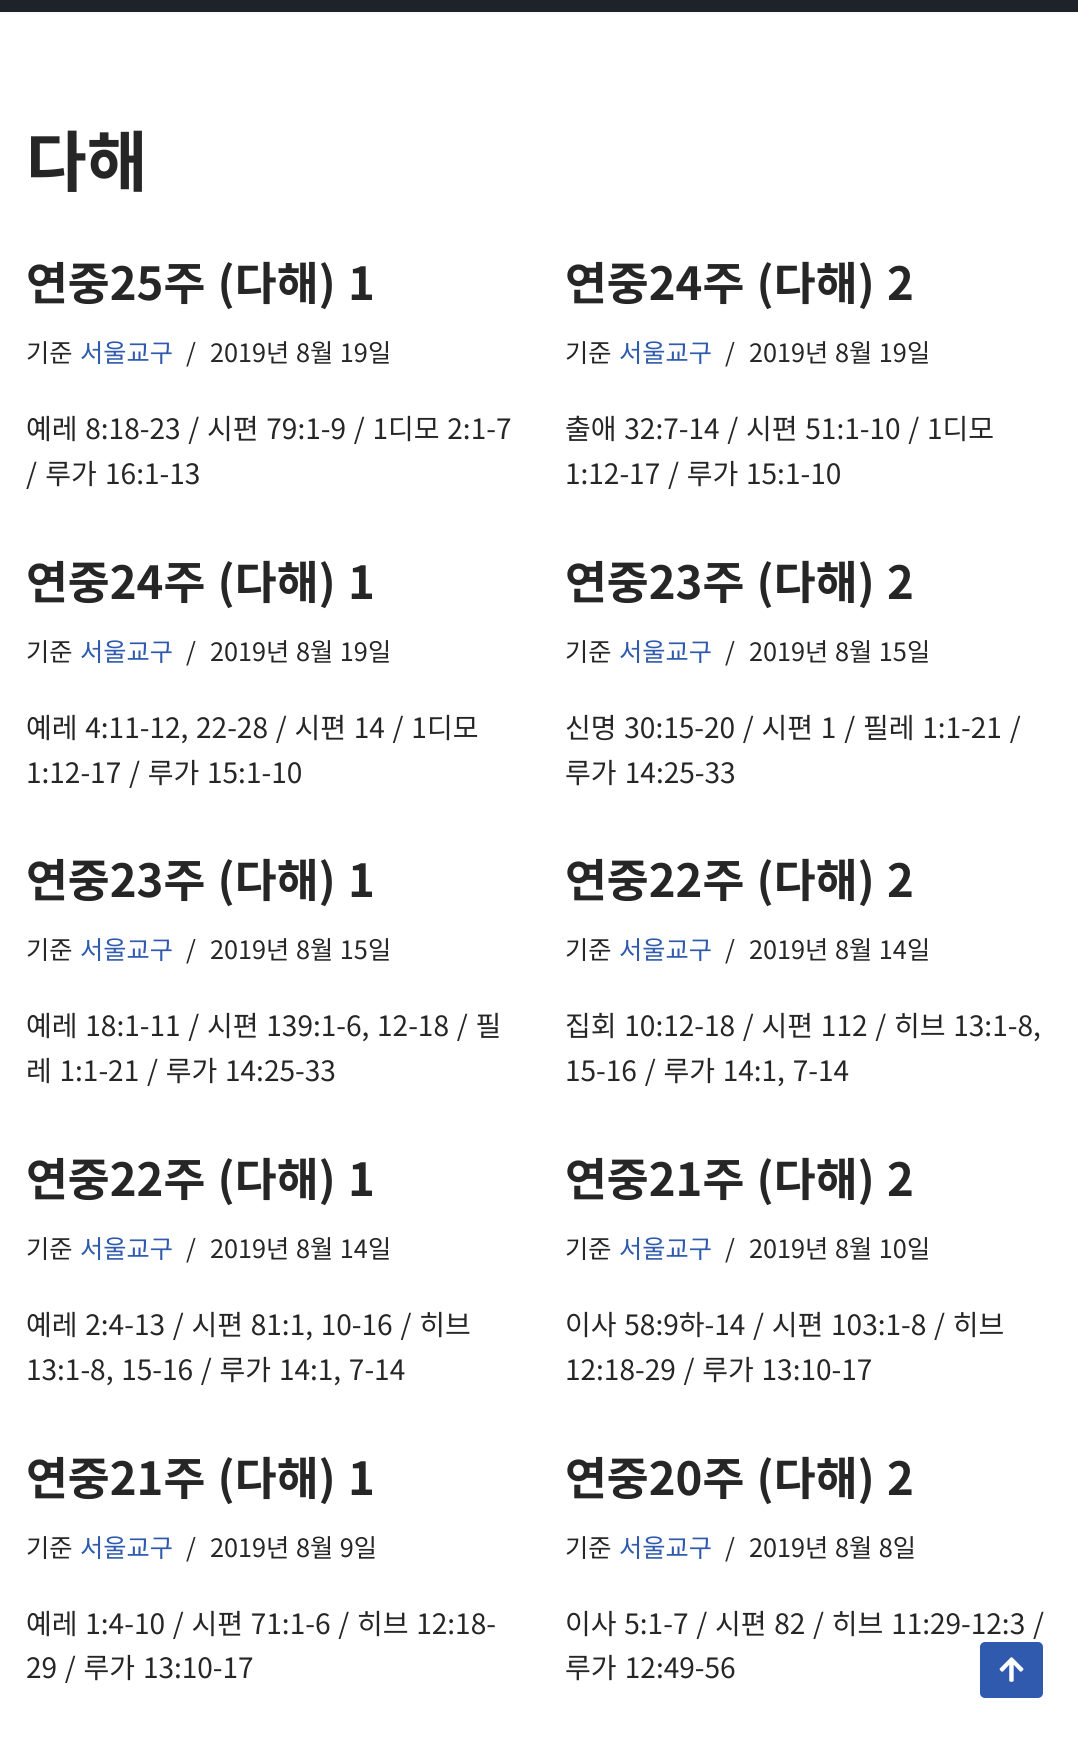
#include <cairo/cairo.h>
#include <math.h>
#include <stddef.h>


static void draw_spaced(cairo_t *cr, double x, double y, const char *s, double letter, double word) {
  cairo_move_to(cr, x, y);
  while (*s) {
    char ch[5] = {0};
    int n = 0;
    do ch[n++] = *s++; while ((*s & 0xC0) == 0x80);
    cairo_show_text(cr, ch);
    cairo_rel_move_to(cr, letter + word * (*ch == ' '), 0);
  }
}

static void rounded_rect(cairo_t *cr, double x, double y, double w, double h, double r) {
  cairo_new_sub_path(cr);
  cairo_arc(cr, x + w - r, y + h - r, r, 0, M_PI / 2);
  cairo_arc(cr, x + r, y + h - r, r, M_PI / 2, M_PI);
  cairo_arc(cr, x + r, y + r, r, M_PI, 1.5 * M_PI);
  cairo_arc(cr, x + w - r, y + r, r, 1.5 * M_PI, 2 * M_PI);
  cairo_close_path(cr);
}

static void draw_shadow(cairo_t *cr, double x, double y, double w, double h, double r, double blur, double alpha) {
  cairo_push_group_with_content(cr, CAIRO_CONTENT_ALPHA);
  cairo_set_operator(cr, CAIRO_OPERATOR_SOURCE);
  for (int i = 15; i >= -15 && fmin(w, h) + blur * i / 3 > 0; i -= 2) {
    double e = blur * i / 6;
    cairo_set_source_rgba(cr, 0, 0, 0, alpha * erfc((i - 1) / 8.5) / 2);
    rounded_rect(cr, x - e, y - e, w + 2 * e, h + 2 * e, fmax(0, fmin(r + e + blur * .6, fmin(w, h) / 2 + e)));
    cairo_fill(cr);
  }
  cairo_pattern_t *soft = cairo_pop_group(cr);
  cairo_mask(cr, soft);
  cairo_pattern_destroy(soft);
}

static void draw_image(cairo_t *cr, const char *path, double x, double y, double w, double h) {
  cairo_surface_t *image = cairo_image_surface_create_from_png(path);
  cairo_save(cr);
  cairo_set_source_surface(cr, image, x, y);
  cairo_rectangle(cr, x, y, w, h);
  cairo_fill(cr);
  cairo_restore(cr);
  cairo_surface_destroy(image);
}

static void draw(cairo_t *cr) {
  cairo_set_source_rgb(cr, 1, 1, 1);
  cairo_paint(cr);
  cairo_set_source_rgb(cr, 0, 0, 0);
  draw_shadow(cr, 0, -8, 1078, 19, 0, 2.5, 0.1);
  cairo_set_source_rgb(cr, 30 / 255.0, 35 / 255.0, 41 / 255.0);
  cairo_rectangle(cr, 0, 0, 1078, 12);
  cairo_fill(cr);
  cairo_set_source_rgb(cr, 47 / 255.0, 90 / 255.0, 174 / 255.0);
  rounded_rect(cr, 980, 1642, 63, 56, 5);
  cairo_fill(cr);
  draw_image(cr, "images/1.png", 999, 1657, 25, 25);
  cairo_select_font_face(cr, "Noto Sans KR", CAIRO_FONT_SLANT_NORMAL, CAIRO_FONT_WEIGHT_BOLD);
  cairo_set_font_size(cr, 66);
  cairo_set_source_rgb(cr, 39 / 255.0, 38 / 255.0, 38 / 255.0);
  cairo_move_to(cr, 26, 186);
  cairo_show_text(cr, "다해");
  cairo_set_font_size(cr, 45.5);
  draw_spaced(cr, 26, 300, "연중25주 (다해) 1", 0, 2);
  cairo_select_font_face(cr, "Noto Sans KR", CAIRO_FONT_SLANT_NORMAL, CAIRO_FONT_WEIGHT_NORMAL);
  cairo_set_font_size(cr, 25.25);
  cairo_move_to(cr, 26, 362);
  cairo_show_text(cr, "기준");
  cairo_set_source_rgb(cr, 47 / 255.0, 90 / 255.0, 174 / 255.0);
  cairo_move_to(cr, 80, 362);
  cairo_show_text(cr, "서울교구");
  cairo_set_source_rgb(cr, 39 / 255.0, 38 / 255.0, 38 / 255.0);
  cairo_move_to(cr, 186, 362);
  cairo_show_text(cr, "/");
  draw_spaced(cr, 210, 362, "2019년 8월 19일", 0, 1);
  cairo_set_font_size(cr, 28);
  draw_spaced(cr, 26, 439, "예레 8:18-23 / 시편 79:1-9 / 1디모 2:1-7", 0, 1.5);
  draw_spaced(cr, 26, 484, "/ 루가 16:1-13", 0, 2);
  cairo_select_font_face(cr, "Noto Sans KR", CAIRO_FONT_SLANT_NORMAL, CAIRO_FONT_WEIGHT_BOLD);
  cairo_set_font_size(cr, 45.5);
  draw_spaced(cr, 565, 300, "연중24주 (다해) 2", 0, 2);
  cairo_select_font_face(cr, "Noto Sans KR", CAIRO_FONT_SLANT_NORMAL, CAIRO_FONT_WEIGHT_NORMAL);
  cairo_set_font_size(cr, 25.25);
  cairo_move_to(cr, 565, 362);
  cairo_show_text(cr, "기준");
  cairo_set_source_rgb(cr, 47 / 255.0, 90 / 255.0, 174 / 255.0);
  cairo_move_to(cr, 619, 362);
  cairo_show_text(cr, "서울교구");
  cairo_set_source_rgb(cr, 39 / 255.0, 38 / 255.0, 38 / 255.0);
  cairo_move_to(cr, 725, 362);
  cairo_show_text(cr, "/");
  draw_spaced(cr, 749, 362, "2019년 8월 19일", 0, 1);
  cairo_set_font_size(cr, 28);
  draw_spaced(cr, 565, 439, "출애 32:7-14 / 시편 51:1-10 / 1디모", 0, 1.5);
  draw_spaced(cr, 565, 484, "1:12-17 / 루가 15:1-10", 0, 1.5);
  cairo_select_font_face(cr, "Noto Sans KR", CAIRO_FONT_SLANT_NORMAL, CAIRO_FONT_WEIGHT_BOLD);
  cairo_set_font_size(cr, 45.5);
  draw_spaced(cr, 26, 599, "연중24주 (다해) 1", 0, 2);
  cairo_select_font_face(cr, "Noto Sans KR", CAIRO_FONT_SLANT_NORMAL, CAIRO_FONT_WEIGHT_NORMAL);
  cairo_set_font_size(cr, 25.25);
  cairo_move_to(cr, 26, 661);
  cairo_show_text(cr, "기준");
  cairo_set_source_rgb(cr, 47 / 255.0, 90 / 255.0, 174 / 255.0);
  cairo_move_to(cr, 80, 661);
  cairo_show_text(cr, "서울교구");
  cairo_set_source_rgb(cr, 39 / 255.0, 38 / 255.0, 38 / 255.0);
  cairo_move_to(cr, 186, 661);
  cairo_show_text(cr, "/");
  draw_spaced(cr, 210, 661, "2019년 8월 19일", 0, 1);
  cairo_set_font_size(cr, 28);
  draw_spaced(cr, 26, 738, "예레 4:11-12, 22-28 / 시편 14 / 1디모", 0, 1.5);
  draw_spaced(cr, 26, 783, "1:12-17 / 루가 15:1-10", 0, 1.5);
  cairo_select_font_face(cr, "Noto Sans KR", CAIRO_FONT_SLANT_NORMAL, CAIRO_FONT_WEIGHT_BOLD);
  cairo_set_font_size(cr, 45.5);
  draw_spaced(cr, 565, 599, "연중23주 (다해) 2", 0, 2);
  cairo_select_font_face(cr, "Noto Sans KR", CAIRO_FONT_SLANT_NORMAL, CAIRO_FONT_WEIGHT_NORMAL);
  cairo_set_font_size(cr, 25.25);
  cairo_move_to(cr, 565, 661);
  cairo_show_text(cr, "기준");
  cairo_set_source_rgb(cr, 47 / 255.0, 90 / 255.0, 174 / 255.0);
  cairo_move_to(cr, 619, 661);
  cairo_show_text(cr, "서울교구");
  cairo_set_source_rgb(cr, 39 / 255.0, 38 / 255.0, 38 / 255.0);
  cairo_move_to(cr, 725, 661);
  cairo_show_text(cr, "/");
  draw_spaced(cr, 749, 661, "2019년 8월 15일", 0, 1);
  cairo_set_font_size(cr, 28);
  draw_spaced(cr, 565, 738, "신명 30:15-20 / 시편 1 / 필레 1:1-21 /", 0, 1.5);
  draw_spaced(cr, 565, 783, "루가 14:25-33", 0, 2);
  cairo_select_font_face(cr, "Noto Sans KR", CAIRO_FONT_SLANT_NORMAL, CAIRO_FONT_WEIGHT_BOLD);
  cairo_set_font_size(cr, 45.5);
  draw_spaced(cr, 26, 897, "연중23주 (다해) 1", 0, 2);
  cairo_select_font_face(cr, "Noto Sans KR", CAIRO_FONT_SLANT_NORMAL, CAIRO_FONT_WEIGHT_NORMAL);
  cairo_set_font_size(cr, 25.25);
  cairo_move_to(cr, 26, 959);
  cairo_show_text(cr, "기준");
  cairo_set_source_rgb(cr, 47 / 255.0, 90 / 255.0, 174 / 255.0);
  cairo_move_to(cr, 80, 959);
  cairo_show_text(cr, "서울교구");
  cairo_set_source_rgb(cr, 39 / 255.0, 38 / 255.0, 38 / 255.0);
  cairo_move_to(cr, 186, 959);
  cairo_show_text(cr, "/");
  draw_spaced(cr, 210, 959, "2019년 8월 15일", 0, 1);
  cairo_set_font_size(cr, 28);
  draw_spaced(cr, 26, 1036, "예레 18:1-11 / 시편 139:1-6, 12-18 / 필", 0, 1.5);
  draw_spaced(cr, 26, 1081, "레 1:1-21 / 루가 14:25-33", 0, 1.5);
  cairo_select_font_face(cr, "Noto Sans KR", CAIRO_FONT_SLANT_NORMAL, CAIRO_FONT_WEIGHT_BOLD);
  cairo_set_font_size(cr, 45.5);
  draw_spaced(cr, 565, 897, "연중22주 (다해) 2", 0, 2);
  cairo_select_font_face(cr, "Noto Sans KR", CAIRO_FONT_SLANT_NORMAL, CAIRO_FONT_WEIGHT_NORMAL);
  cairo_set_font_size(cr, 25.25);
  cairo_move_to(cr, 565, 959);
  cairo_show_text(cr, "기준");
  cairo_set_source_rgb(cr, 47 / 255.0, 90 / 255.0, 174 / 255.0);
  cairo_move_to(cr, 619, 959);
  cairo_show_text(cr, "서울교구");
  cairo_set_source_rgb(cr, 39 / 255.0, 38 / 255.0, 38 / 255.0);
  cairo_move_to(cr, 725, 959);
  cairo_show_text(cr, "/");
  draw_spaced(cr, 749, 959, "2019년 8월 14일", 0, 1);
  cairo_set_font_size(cr, 28);
  draw_spaced(cr, 565, 1036, "집회 10:12-18 / 시편 112 / 히브 13:1-8,", 0, 1.5);
  draw_spaced(cr, 565, 1081, "15-16 / 루가 14:1, 7-14", 0, 1.5);
  cairo_select_font_face(cr, "Noto Sans KR", CAIRO_FONT_SLANT_NORMAL, CAIRO_FONT_WEIGHT_BOLD);
  cairo_set_font_size(cr, 45.5);
  draw_spaced(cr, 26, 1196, "연중22주 (다해) 1", 0, 2);
  cairo_select_font_face(cr, "Noto Sans KR", CAIRO_FONT_SLANT_NORMAL, CAIRO_FONT_WEIGHT_NORMAL);
  cairo_set_font_size(cr, 25.25);
  cairo_move_to(cr, 26, 1258);
  cairo_show_text(cr, "기준");
  cairo_set_source_rgb(cr, 47 / 255.0, 90 / 255.0, 174 / 255.0);
  cairo_move_to(cr, 80, 1258);
  cairo_show_text(cr, "서울교구");
  cairo_set_source_rgb(cr, 39 / 255.0, 38 / 255.0, 38 / 255.0);
  cairo_move_to(cr, 186, 1258);
  cairo_show_text(cr, "/");
  draw_spaced(cr, 210, 1258, "2019년 8월 14일", 0, 1);
  cairo_set_font_size(cr, 28);
  draw_spaced(cr, 26, 1335, "예레 2:4-13 / 시편 81:1, 10-16 / 히브", 0, 1.5);
  draw_spaced(cr, 26, 1380, "13:1-8, 15-16 / 루가 14:1, 7-14", 0, 1.5);
  cairo_select_font_face(cr, "Noto Sans KR", CAIRO_FONT_SLANT_NORMAL, CAIRO_FONT_WEIGHT_BOLD);
  cairo_set_font_size(cr, 45.5);
  draw_spaced(cr, 565, 1196, "연중21주 (다해) 2", 0, 2);
  cairo_select_font_face(cr, "Noto Sans KR", CAIRO_FONT_SLANT_NORMAL, CAIRO_FONT_WEIGHT_NORMAL);
  cairo_set_font_size(cr, 25.25);
  cairo_move_to(cr, 565, 1258);
  cairo_show_text(cr, "기준");
  cairo_set_source_rgb(cr, 47 / 255.0, 90 / 255.0, 174 / 255.0);
  cairo_move_to(cr, 619, 1258);
  cairo_show_text(cr, "서울교구");
  cairo_set_source_rgb(cr, 39 / 255.0, 38 / 255.0, 38 / 255.0);
  cairo_move_to(cr, 725, 1258);
  cairo_show_text(cr, "/");
  draw_spaced(cr, 749, 1258, "2019년 8월 10일", 0, 1);
  cairo_set_font_size(cr, 28);
  draw_spaced(cr, 565, 1335, "이사 58:9하-14 / 시편 103:1-8 / 히브", 0, 1.5);
  draw_spaced(cr, 565, 1380, "12:18-29 / 루가 13:10-17", 0, 1.5);
  cairo_select_font_face(cr, "Noto Sans KR", CAIRO_FONT_SLANT_NORMAL, CAIRO_FONT_WEIGHT_BOLD);
  cairo_set_font_size(cr, 45.5);
  draw_spaced(cr, 26, 1495, "연중21주 (다해) 1", 0, 2);
  cairo_select_font_face(cr, "Noto Sans KR", CAIRO_FONT_SLANT_NORMAL, CAIRO_FONT_WEIGHT_NORMAL);
  cairo_set_font_size(cr, 25.25);
  cairo_move_to(cr, 26, 1557);
  cairo_show_text(cr, "기준");
  cairo_set_source_rgb(cr, 47 / 255.0, 90 / 255.0, 174 / 255.0);
  cairo_move_to(cr, 80, 1557);
  cairo_show_text(cr, "서울교구");
  cairo_set_source_rgb(cr, 39 / 255.0, 38 / 255.0, 38 / 255.0);
  cairo_move_to(cr, 186, 1557);
  cairo_show_text(cr, "/");
  draw_spaced(cr, 210, 1557, "2019년 8월 9일", 0, 1);
  cairo_set_font_size(cr, 28);
  draw_spaced(cr, 26, 1634, "예레 1:4-10 / 시편 71:1-6 / 히브 12:18-", 0, 1.5);
  draw_spaced(cr, 26, 1678, "29 / 루가 13:10-17", 0, 1.5);
  cairo_select_font_face(cr, "Noto Sans KR", CAIRO_FONT_SLANT_NORMAL, CAIRO_FONT_WEIGHT_BOLD);
  cairo_set_font_size(cr, 45.5);
  draw_spaced(cr, 565, 1495, "연중20주 (다해) 2", 0, 2);
  cairo_select_font_face(cr, "Noto Sans KR", CAIRO_FONT_SLANT_NORMAL, CAIRO_FONT_WEIGHT_NORMAL);
  cairo_set_font_size(cr, 25.25);
  cairo_move_to(cr, 565, 1557);
  cairo_show_text(cr, "기준");
  cairo_set_source_rgb(cr, 47 / 255.0, 90 / 255.0, 174 / 255.0);
  cairo_move_to(cr, 619, 1557);
  cairo_show_text(cr, "서울교구");
  cairo_set_source_rgb(cr, 39 / 255.0, 38 / 255.0, 38 / 255.0);
  cairo_move_to(cr, 725, 1557);
  cairo_show_text(cr, "/");
  draw_spaced(cr, 749, 1557, "2019년 8월 8일", 0, 1);
  cairo_set_font_size(cr, 28);
  draw_spaced(cr, 565, 1634, "이사 5:1-7 / 시편 82 / 히브 11:29-12:3 /", 0, 1.5);
  draw_spaced(cr, 565, 1678, "루가 12:49-56", 0, 2);
}

int main(void) {
  cairo_surface_t *surface = cairo_image_surface_create(CAIRO_FORMAT_RGB24, 1078, 1750);
  cairo_t *cr = cairo_create(surface);
  cairo_font_options_t *options = cairo_font_options_create();
  cairo_font_options_set_hint_metrics(options, CAIRO_HINT_METRICS_OFF);
  cairo_font_options_set_hint_style(options, CAIRO_HINT_STYLE_NONE);
  cairo_set_font_options(cr, options);
  cairo_set_miter_limit(cr, 4);
  draw(cr);
  cairo_surface_write_to_png(surface, "out.png");
  cairo_font_options_destroy(options);
  cairo_destroy(cr);
  cairo_surface_destroy(surface);
  return 0;
}
